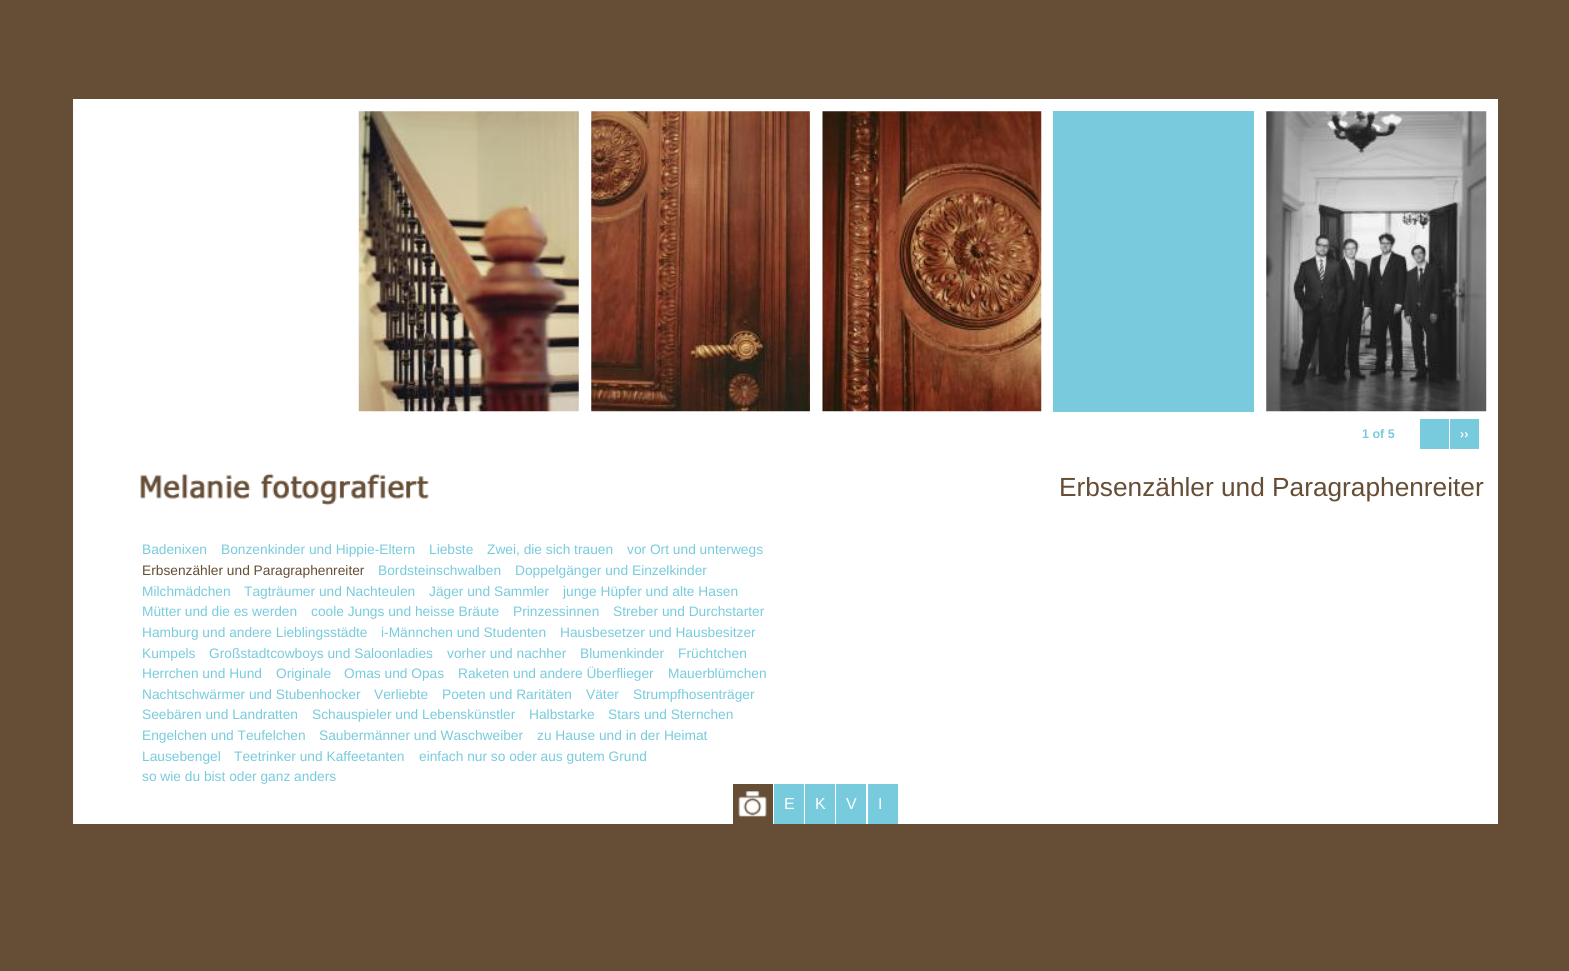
#include <cairo/cairo.h>
#include <math.h>
#include <stddef.h>


static void draw_image(cairo_t *cr, const char *path, double x, double y, double w, double h) {
  cairo_surface_t *image = cairo_image_surface_create_from_png(path);
  cairo_save(cr);
  cairo_set_source_surface(cr, image, x, y);
  cairo_rectangle(cr, x, y, w, h);
  cairo_fill(cr);
  cairo_restore(cr);
  cairo_surface_destroy(image);
}

static void draw(cairo_t *cr) {
  cairo_set_source_rgb(cr, 101 / 255.0, 77 / 255.0, 54 / 255.0);
  cairo_paint(cr);
  cairo_set_source_rgb(cr, 1, 1, 1);
  cairo_rectangle(cr, 73, 99, 1425, 725);
  cairo_fill(cr);
  draw_image(cr, "images/1.png", 358, 111, 221, 301);
  draw_image(cr, "images/2.png", 591, 111, 219, 301);
  draw_image(cr, "images/3.png", 822, 111, 220, 301);
  cairo_set_source_rgb(cr, 121 / 255.0, 202 / 255.0, 221 / 255.0);
  cairo_rectangle(cr, 1053, 111, 201, 301);
  cairo_fill(cr);
  draw_image(cr, "images/4.png", 1266, 111, 221, 301);
  cairo_set_source_rgb(cr, 120 / 255.0, 203 / 255.0, 221 / 255.0);
  cairo_rectangle(cr, 1420, 419, 29, 30);
  cairo_fill(cr);
  cairo_rectangle(cr, 1450, 419, 29, 30);
  cairo_fill(cr);
  draw_image(cr, "images/5.png", 140, 473, 289, 33);
  cairo_set_source_rgb(cr, 101 / 255.0, 77 / 255.0, 54 / 255.0);
  cairo_rectangle(cr, 733, 784, 40, 40);
  cairo_fill(cr);
  draw_image(cr, "images/6.png", 738, 791, 29, 26);
  cairo_set_source_rgb(cr, 120 / 255.0, 203 / 255.0, 221 / 255.0);
  cairo_rectangle(cr, 774, 784, 30, 40);
  cairo_fill(cr);
  cairo_rectangle(cr, 805, 784, 30, 40);
  cairo_fill(cr);
  cairo_rectangle(cr, 836, 784, 30, 40);
  cairo_fill(cr);
  cairo_rectangle(cr, 868, 784, 30, 40);
  cairo_fill(cr);
  cairo_select_font_face(cr, "Liberation Sans", CAIRO_FONT_SLANT_NORMAL, CAIRO_FONT_WEIGHT_BOLD);
  cairo_set_font_size(cr, 12.5);
  cairo_move_to(cr, 1362, 438);
  cairo_show_text(cr, "1 of 5");
  cairo_set_source_rgb(cr, 1, 1, 1);
  cairo_move_to(cr, 1460, 438);
  cairo_show_text(cr, "››");
  cairo_select_font_face(cr, "Liberation Sans", CAIRO_FONT_SLANT_NORMAL, CAIRO_FONT_WEIGHT_NORMAL);
  cairo_set_font_size(cr, 26.25);
  cairo_set_source_rgb(cr, 101 / 255.0, 77 / 255.0, 54 / 255.0);
  cairo_move_to(cr, 1059, 496);
  cairo_show_text(cr, "Erbsenzähler und Paragraphenreiter");
  cairo_set_font_size(cr, 13.75);
  cairo_set_source_rgb(cr, 120 / 255.0, 203 / 255.0, 221 / 255.0);
  cairo_move_to(cr, 142, 554);
  cairo_show_text(cr, "Badenixen");
  cairo_move_to(cr, 221, 554);
  cairo_show_text(cr, "Bonzenkinder und Hippie-Eltern");
  cairo_move_to(cr, 429, 554);
  cairo_show_text(cr, "Liebste");
  cairo_move_to(cr, 487, 554);
  cairo_show_text(cr, "Zwei, die sich trauen");
  cairo_move_to(cr, 627, 554);
  cairo_show_text(cr, "vor Ort und unterwegs");
  cairo_set_source_rgb(cr, 101 / 255.0, 77 / 255.0, 54 / 255.0);
  cairo_move_to(cr, 142, 575);
  cairo_show_text(cr, "Erbsenzähler und Paragraphenreiter");
  cairo_set_source_rgb(cr, 120 / 255.0, 203 / 255.0, 221 / 255.0);
  cairo_move_to(cr, 378, 575);
  cairo_show_text(cr, "Bordsteinschwalben");
  cairo_move_to(cr, 515, 575);
  cairo_show_text(cr, "Doppelgänger und Einzelkinder");
  cairo_move_to(cr, 142, 596);
  cairo_show_text(cr, "Milchmädchen");
  cairo_move_to(cr, 244, 596);
  cairo_show_text(cr, "Tagträumer und Nachteulen");
  cairo_move_to(cr, 429, 596);
  cairo_show_text(cr, "Jäger und Sammler");
  cairo_move_to(cr, 563, 596);
  cairo_show_text(cr, "junge Hüpfer und alte Hasen");
  cairo_move_to(cr, 142, 616);
  cairo_show_text(cr, "Mütter und die es werden");
  cairo_move_to(cr, 311, 616);
  cairo_show_text(cr, "coole Jungs und heisse Bräute");
  cairo_move_to(cr, 513, 616);
  cairo_show_text(cr, "Prinzessinnen");
  cairo_move_to(cr, 613, 616);
  cairo_show_text(cr, "Streber und Durchstarter");
  cairo_move_to(cr, 142, 637);
  cairo_show_text(cr, "Hamburg und andere Lieblingsstädte");
  cairo_move_to(cr, 381, 637);
  cairo_show_text(cr, "i-Männchen und Studenten");
  cairo_move_to(cr, 560, 637);
  cairo_show_text(cr, "Hausbesetzer und Hausbesitzer");
  cairo_move_to(cr, 142, 658);
  cairo_show_text(cr, "Kumpels");
  cairo_move_to(cr, 209, 658);
  cairo_show_text(cr, "Großstadtcowboys und Saloonladies");
  cairo_move_to(cr, 447, 658);
  cairo_show_text(cr, "vorher und nachher");
  cairo_move_to(cr, 580, 658);
  cairo_show_text(cr, "Blumenkinder");
  cairo_move_to(cr, 678, 658);
  cairo_show_text(cr, "Früchtchen");
  cairo_move_to(cr, 142, 678);
  cairo_show_text(cr, "Herrchen und Hund");
  cairo_move_to(cr, 276, 678);
  cairo_show_text(cr, "Originale");
  cairo_move_to(cr, 344, 678);
  cairo_show_text(cr, "Omas und Opas");
  cairo_move_to(cr, 458, 678);
  cairo_show_text(cr, "Raketen und andere Überflieger");
  cairo_move_to(cr, 668, 678);
  cairo_show_text(cr, "Mauerblümchen");
  cairo_move_to(cr, 142, 699);
  cairo_show_text(cr, "Nachtschwärmer und Stubenhocker");
  cairo_move_to(cr, 374, 699);
  cairo_show_text(cr, "Verliebte");
  cairo_move_to(cr, 442, 699);
  cairo_show_text(cr, "Poeten und Raritäten");
  cairo_move_to(cr, 586, 699);
  cairo_show_text(cr, "Väter");
  cairo_move_to(cr, 633, 699);
  cairo_show_text(cr, "Strumpfhosenträger");
  cairo_move_to(cr, 142, 719);
  cairo_show_text(cr, "Seebären und Landratten");
  cairo_move_to(cr, 312, 719);
  cairo_show_text(cr, "Schauspieler und Lebenskünstler");
  cairo_move_to(cr, 529, 719);
  cairo_show_text(cr, "Halbstarke");
  cairo_move_to(cr, 608, 719);
  cairo_show_text(cr, "Stars und Sternchen");
  cairo_move_to(cr, 142, 740);
  cairo_show_text(cr, "Engelchen und Teufelchen");
  cairo_move_to(cr, 319, 740);
  cairo_show_text(cr, "Saubermänner und Waschweiber");
  cairo_move_to(cr, 537, 740);
  cairo_show_text(cr, "zu Hause und in der Heimat");
  cairo_move_to(cr, 142, 761);
  cairo_show_text(cr, "Lausebengel");
  cairo_move_to(cr, 234, 761);
  cairo_show_text(cr, "Teetrinker und Kaffeetanten");
  cairo_move_to(cr, 419, 761);
  cairo_show_text(cr, "einfach nur so oder aus gutem Grund");
  cairo_move_to(cr, 142, 781);
  cairo_show_text(cr, "so wie du bist oder ganz anders");
  cairo_set_font_size(cr, 16);
  cairo_set_source_rgb(cr, 1, 1, 1);
  cairo_move_to(cr, 784, 809);
  cairo_show_text(cr, "E");
  cairo_move_to(cr, 815, 809);
  cairo_show_text(cr, "K");
  cairo_move_to(cr, 846, 809);
  cairo_show_text(cr, "V");
  cairo_move_to(cr, 878, 809);
  cairo_show_text(cr, "I");
}

int main(void) {
  cairo_surface_t *surface = cairo_image_surface_create(CAIRO_FORMAT_RGB24, 1569, 971);
  cairo_t *cr = cairo_create(surface);
  cairo_font_options_t *options = cairo_font_options_create();
  cairo_font_options_set_hint_metrics(options, CAIRO_HINT_METRICS_OFF);
  cairo_font_options_set_hint_style(options, CAIRO_HINT_STYLE_NONE);
  cairo_set_font_options(cr, options);
  cairo_set_miter_limit(cr, 4);
  draw(cr);
  cairo_surface_write_to_png(surface, "out.png");
  cairo_font_options_destroy(options);
  cairo_destroy(cr);
  cairo_surface_destroy(surface);
  return 0;
}
